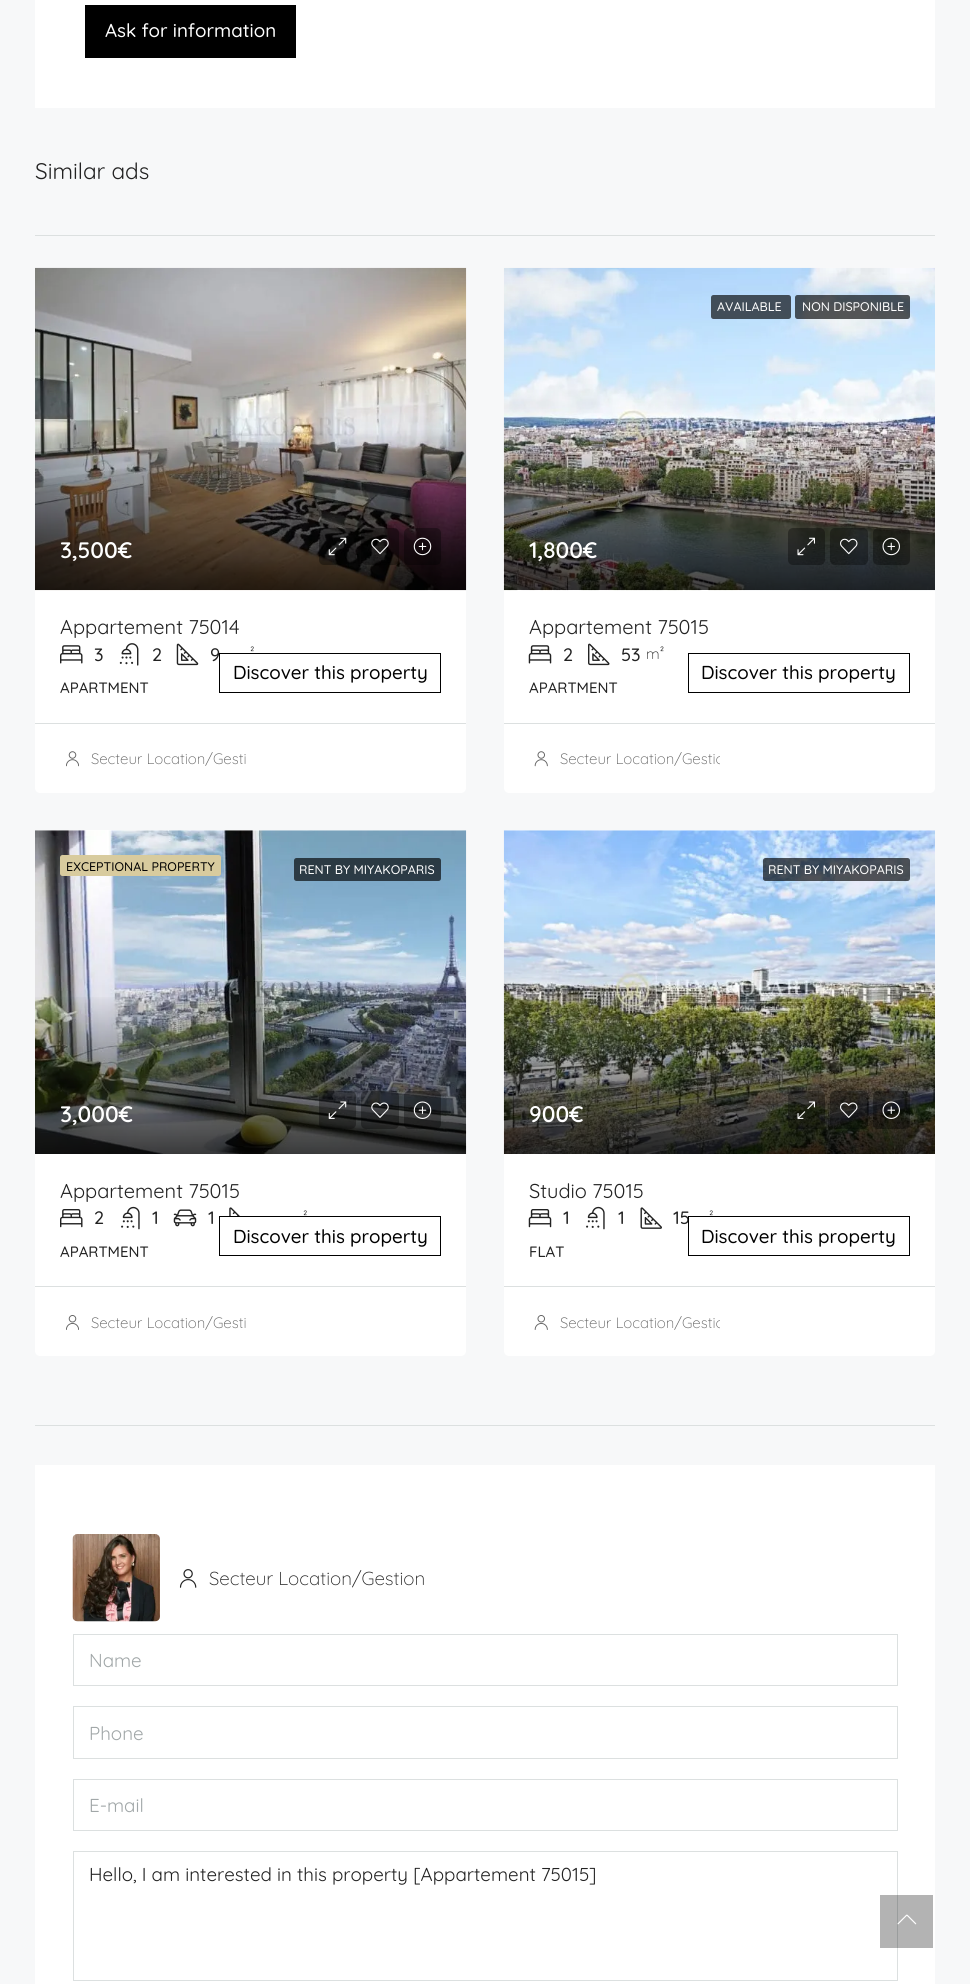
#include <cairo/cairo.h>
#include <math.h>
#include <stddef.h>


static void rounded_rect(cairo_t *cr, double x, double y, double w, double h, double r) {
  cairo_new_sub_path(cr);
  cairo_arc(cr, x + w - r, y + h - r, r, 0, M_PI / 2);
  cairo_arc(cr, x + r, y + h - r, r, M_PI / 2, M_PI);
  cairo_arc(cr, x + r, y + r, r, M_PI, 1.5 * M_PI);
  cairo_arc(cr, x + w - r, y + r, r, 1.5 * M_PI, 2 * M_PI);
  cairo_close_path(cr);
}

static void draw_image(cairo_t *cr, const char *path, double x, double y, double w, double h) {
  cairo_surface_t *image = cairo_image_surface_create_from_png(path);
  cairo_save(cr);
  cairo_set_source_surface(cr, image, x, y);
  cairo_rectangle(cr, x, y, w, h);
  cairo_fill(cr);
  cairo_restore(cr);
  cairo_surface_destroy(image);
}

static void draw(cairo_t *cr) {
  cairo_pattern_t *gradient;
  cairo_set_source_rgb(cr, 247 / 255.0, 248 / 255.0, 249 / 255.0);
  cairo_paint(cr);
  cairo_set_source_rgb(cr, 1, 1, 1);
  cairo_rectangle(cr, 35, 0, 900, 108);
  cairo_fill(cr);
  cairo_set_source_rgb(cr, 0, 0, 0);
  cairo_rectangle(cr, 85, 5, 211, 53);
  cairo_fill(cr);
  cairo_set_source_rgb(cr, 220 / 255.0, 224 / 255.0, 224 / 255.0);
  cairo_rectangle(cr, 35, 1425, 900, 1);
  cairo_fill(cr);
  cairo_rectangle(cr, 35, 235, 900, 1);
  cairo_fill(cr);
  cairo_set_source_rgb(cr, 1, 1, 1);
  rounded_rect(cr, 35, 268, 431, 525, 5);
  cairo_fill(cr);
  draw_image(cr, "images/1.png", 35, 267, 432, 324);
  cairo_set_source_rgba(cr, 0, 0, 0, 0.35);
  rounded_rect(cr, 319, 528, 37, 37, 5);
  cairo_fill(cr);
  draw_image(cr, "images/2.png", 328, 537, 19, 19);
  rounded_rect(cr, 361, 528, 38, 37, 5);
  cairo_fill(cr);
  draw_image(cr, "images/3.png", 371, 538, 18, 17);
  rounded_rect(cr, 404, 528, 37, 37, 5);
  cairo_fill(cr);
  draw_image(cr, "images/4.png", 413, 537, 19, 19);
  draw_image(cr, "images/5.png", 60, 645, 23, 19);
  draw_image(cr, "images/6.png", 119, 643, 20, 23);
  draw_image(cr, "images/7.png", 176, 643, 23, 23);
  cairo_set_source_rgb(cr, 220 / 255.0, 224 / 255.0, 224 / 255.0);
  cairo_rectangle(cr, 35, 723, 431, 1);
  cairo_fill(cr);
  draw_image(cr, "images/8.png", 66, 751, 13, 16);
  cairo_set_source_rgb(cr, 1, 1, 1);
  rounded_rect(cr, 504, 268, 431, 525, 5);
  cairo_fill(cr);
  draw_image(cr, "images/9.png", 503, 267, 432, 324);
  gradient = cairo_pattern_create_linear(719, 267, 719, 590);
  cairo_pattern_add_color_stop_rgba(gradient, 0, 0, 0, 0, 0);
  cairo_pattern_add_color_stop_rgba(gradient, 0.5, 0, 0, 0, 0);
  cairo_pattern_add_color_stop_rgba(gradient, 1, 0, 0, 0, 0.75);
  cairo_set_source(cr, gradient);
  cairo_pattern_destroy(gradient);
  cairo_rectangle(cr, 504, 433, 431, 157);
  cairo_fill(cr);
  cairo_set_source_rgba(cr, 0, 0, 0, 0.65);
  rounded_rect(cr, 711, 295, 80, 24, 2.5);
  cairo_fill(cr);
  rounded_rect(cr, 795, 295, 115, 24, 2.5);
  cairo_fill(cr);
  cairo_set_source_rgba(cr, 0, 0, 0, 0.35);
  rounded_rect(cr, 788, 528, 37, 37, 5);
  cairo_fill(cr);
  draw_image(cr, "images/10.png", 797, 537, 18, 19);
  rounded_rect(cr, 830, 528, 38, 37, 5);
  cairo_fill(cr);
  draw_image(cr, "images/11.png", 840, 538, 18, 17);
  rounded_rect(cr, 873, 528, 37, 37, 5);
  cairo_fill(cr);
  draw_image(cr, "images/12.png", 882, 537, 18, 19);
  draw_image(cr, "images/13.png", 528, 645, 24, 19);
  draw_image(cr, "images/14.png", 588, 643, 22, 23);
  cairo_rectangle(cr, 688.5, 653.5, 221, 39);
  cairo_set_source_rgb(cr, 0, 0, 0);
  cairo_set_line_width(cr, 1);
  cairo_stroke(cr);
  cairo_set_source_rgb(cr, 220 / 255.0, 224 / 255.0, 224 / 255.0);
  cairo_rectangle(cr, 504, 723, 431, 1);
  cairo_fill(cr);
  draw_image(cr, "images/15.png", 534, 751, 14, 16);
  cairo_set_source_rgb(cr, 1, 1, 1);
  rounded_rect(cr, 35, 830, 431, 526, 5);
  cairo_fill(cr);
  draw_image(cr, "images/16.png", 35, 830, 432, 324);
  gradient = cairo_pattern_create_linear(251, 830, 251, 1154);
  cairo_pattern_add_color_stop_rgba(gradient, 0, 0, 0, 0, 0);
  cairo_pattern_add_color_stop_rgba(gradient, 0.5, 0, 0, 0, 0);
  cairo_pattern_add_color_stop_rgba(gradient, 1, 0, 0, 0, 0.75);
  cairo_set_source(cr, gradient);
  cairo_pattern_destroy(gradient);
  cairo_rectangle(cr, 35, 997, 431, 157);
  cairo_fill(cr);
  cairo_set_source_rgb(cr, 216 / 255.0, 203 / 255.0, 158 / 255.0);
  rounded_rect(cr, 60, 855, 161, 21, 2.5);
  cairo_fill(cr);
  cairo_set_source_rgba(cr, 0, 0, 0, 0.65);
  rounded_rect(cr, 294, 858, 147, 23, 2.5);
  cairo_fill(cr);
  cairo_set_source_rgba(cr, 0, 0, 0, 0.35);
  rounded_rect(cr, 319, 1091, 37, 38, 5);
  cairo_fill(cr);
  draw_image(cr, "images/17.png", 328, 1101, 19, 18);
  rounded_rect(cr, 361, 1091, 38, 38, 5);
  cairo_fill(cr);
  draw_image(cr, "images/18.png", 371, 1102, 18, 16);
  rounded_rect(cr, 404, 1091, 37, 38, 5);
  cairo_fill(cr);
  draw_image(cr, "images/19.png", 413, 1101, 19, 18);
  draw_image(cr, "images/20.png", 60, 1209, 23, 19);
  draw_image(cr, "images/21.png", 121, 1206, 19, 24);
  draw_image(cr, "images/22.png", 173, 1209, 24, 18);
  draw_image(cr, "images/23.png", 229, 1207, 11, 9);
  cairo_rectangle(cr, 219.5, 1216.5, 221, 39);
  cairo_set_source_rgb(cr, 0, 0, 0);
  cairo_stroke(cr);
  cairo_set_source_rgb(cr, 220 / 255.0, 224 / 255.0, 224 / 255.0);
  cairo_rectangle(cr, 35, 1286, 431, 1);
  cairo_fill(cr);
  draw_image(cr, "images/24.png", 66, 1315, 13, 15);
  cairo_set_source_rgb(cr, 1, 1, 1);
  rounded_rect(cr, 504, 830, 431, 526, 5);
  cairo_fill(cr);
  draw_image(cr, "images/25.png", 503, 830, 432, 324);
  gradient = cairo_pattern_create_linear(719, 830, 719, 1154);
  cairo_pattern_add_color_stop_rgba(gradient, 0, 0, 0, 0, 0);
  cairo_pattern_add_color_stop_rgba(gradient, 0.5, 0, 0, 0, 0);
  cairo_pattern_add_color_stop_rgba(gradient, 1, 0, 0, 0, 0.75);
  cairo_set_source(cr, gradient);
  cairo_pattern_destroy(gradient);
  cairo_rectangle(cr, 504, 997, 431, 157);
  cairo_fill(cr);
  cairo_set_source_rgba(cr, 0, 0, 0, 0.65);
  rounded_rect(cr, 763, 858, 147, 23, 2.5);
  cairo_fill(cr);
  cairo_set_source_rgba(cr, 0, 0, 0, 0.35);
  rounded_rect(cr, 788, 1091, 37, 38, 5);
  cairo_fill(cr);
  draw_image(cr, "images/26.png", 797, 1101, 18, 18);
  rounded_rect(cr, 830, 1091, 38, 38, 5);
  cairo_fill(cr);
  draw_image(cr, "images/27.png", 840, 1102, 18, 16);
  rounded_rect(cr, 873, 1091, 37, 38, 5);
  cairo_fill(cr);
  draw_image(cr, "images/28.png", 882, 1101, 18, 18);
  draw_image(cr, "images/29.png", 528, 1209, 24, 19);
  draw_image(cr, "images/21.png", 586, 1206, 19, 24);
  draw_image(cr, "images/30.png", 640, 1207, 22, 22);
  cairo_set_source_rgb(cr, 220 / 255.0, 224 / 255.0, 224 / 255.0);
  cairo_rectangle(cr, 504, 1286, 431, 1);
  cairo_fill(cr);
  draw_image(cr, "images/31.png", 534, 1315, 14, 15);
  cairo_set_source_rgb(cr, 1, 1, 1);
  cairo_rectangle(cr, 35, 1465, 900, 519);
  cairo_fill(cr);
  draw_image(cr, "images/32.png", 72, 1534, 88, 88);
  draw_image(cr, "images/33.png", 179, 1569, 18, 19);
  cairo_rectangle(cr, 73.5, 1634.5, 824, 51);
  cairo_set_source_rgb(cr, 220 / 255.0, 224 / 255.0, 224 / 255.0);
  cairo_stroke(cr);
  cairo_rectangle(cr, 73.5, 1706.5, 824, 52);
  cairo_stroke(cr);
  cairo_rectangle(cr, 73.5, 1779.5, 824, 51);
  cairo_stroke(cr);
  cairo_rectangle(cr, 73.5, 1851.5, 824, 129);
  cairo_stroke(cr);
  cairo_set_source_rgba(cr, 0, 0, 0, 0.3);
  cairo_rectangle(cr, 880, 1895, 53, 53);
  cairo_fill(cr);
  draw_image(cr, "images/34.png", 897, 1914, 20, 11);
  cairo_select_font_face(cr, "Quicksand Medium", CAIRO_FONT_SLANT_NORMAL, CAIRO_FONT_WEIGHT_NORMAL);
  cairo_set_font_size(cr, 18.75);
  cairo_set_source_rgb(cr, 1, 1, 1);
  cairo_move_to(cr, 105, 37);
  cairo_show_text(cr, "Ask for information");
  cairo_select_font_face(cr, "Quicksand", CAIRO_FONT_SLANT_NORMAL, CAIRO_FONT_WEIGHT_NORMAL);
  cairo_set_font_size(cr, 22.5);
  cairo_set_source_rgb(cr, 34 / 255.0, 34 / 255.0, 34 / 255.0);
  cairo_move_to(cr, 35, 179);
  cairo_show_text(cr, "Similar ads");
  cairo_select_font_face(cr, "Quicksand SemiBold", CAIRO_FONT_SLANT_NORMAL, CAIRO_FONT_WEIGHT_NORMAL);
  cairo_set_source_rgb(cr, 1, 1, 1);
  cairo_move_to(cr, 60, 558);
  cairo_show_text(cr, "3,500€");
  cairo_select_font_face(cr, "Quicksand", CAIRO_FONT_SLANT_NORMAL, CAIRO_FONT_WEIGHT_NORMAL);
  cairo_set_font_size(cr, 20);
  cairo_set_source_rgb(cr, 34 / 255.0, 34 / 255.0, 34 / 255.0);
  cairo_move_to(cr, 60, 634);
  cairo_show_text(cr, "Appartement 75014");
  cairo_select_font_face(cr, "Quicksand Medium", CAIRO_FONT_SLANT_NORMAL, CAIRO_FONT_WEIGHT_NORMAL);
  cairo_set_font_size(cr, 18);
  cairo_move_to(cr, 94, 661);
  cairo_show_text(cr, "3");
  cairo_move_to(cr, 152, 661);
  cairo_show_text(cr, "2");
  cairo_move_to(cr, 210, 661);
  cairo_show_text(cr, "9");
  cairo_select_font_face(cr, "Quicksand Light", CAIRO_FONT_SLANT_NORMAL, CAIRO_FONT_WEIGHT_NORMAL);
  cairo_set_font_size(cr, 15);
  cairo_move_to(cr, 250, 659);
  cairo_show_text(cr, "²");
  cairo_select_font_face(cr, "Quicksand Medium", CAIRO_FONT_SLANT_NORMAL, CAIRO_FONT_WEIGHT_NORMAL);
  cairo_move_to(cr, 60, 693);
  cairo_show_text(cr, "APARTMENT");
  cairo_rectangle(cr, 219.5, 653.5, 221, 39);
  cairo_set_source_rgb(cr, 0, 0, 0);
  cairo_stroke(cr);
  cairo_set_font_size(cr, 18.75);
  cairo_move_to(cr, 233, 679);
  cairo_show_text(cr, "Discover this property");
  cairo_select_font_face(cr, "Quicksand Light", CAIRO_FONT_SLANT_NORMAL, CAIRO_FONT_WEIGHT_NORMAL);
  cairo_set_font_size(cr, 15);
  cairo_set_source_rgb(cr, 99 / 255.0, 99 / 255.0, 99 / 255.0);
  cairo_move_to(cr, 91, 764);
  cairo_show_text(cr, "Secteur Location/Gesti");
  cairo_select_font_face(cr, "Quicksand Medium", CAIRO_FONT_SLANT_NORMAL, CAIRO_FONT_WEIGHT_NORMAL);
  cairo_set_font_size(cr, 12.5);
  cairo_set_source_rgb(cr, 1, 1, 1);
  cairo_move_to(cr, 717, 311);
  cairo_show_text(cr, "AVAILABLE");
  cairo_move_to(cr, 802, 311);
  cairo_show_text(cr, "NON DISPONIBLE");
  cairo_select_font_face(cr, "Quicksand SemiBold", CAIRO_FONT_SLANT_NORMAL, CAIRO_FONT_WEIGHT_NORMAL);
  cairo_set_font_size(cr, 22.5);
  cairo_move_to(cr, 529, 558);
  cairo_show_text(cr, "1,800€");
  cairo_select_font_face(cr, "Quicksand", CAIRO_FONT_SLANT_NORMAL, CAIRO_FONT_WEIGHT_NORMAL);
  cairo_set_font_size(cr, 20);
  cairo_set_source_rgb(cr, 34 / 255.0, 34 / 255.0, 34 / 255.0);
  cairo_move_to(cr, 529, 634);
  cairo_show_text(cr, "Appartement 75015");
  cairo_select_font_face(cr, "Quicksand Medium", CAIRO_FONT_SLANT_NORMAL, CAIRO_FONT_WEIGHT_NORMAL);
  cairo_set_font_size(cr, 18);
  cairo_move_to(cr, 563, 661);
  cairo_show_text(cr, "2");
  cairo_move_to(cr, 621, 661);
  cairo_show_text(cr, "53");
  cairo_select_font_face(cr, "Quicksand Light", CAIRO_FONT_SLANT_NORMAL, CAIRO_FONT_WEIGHT_NORMAL);
  cairo_set_font_size(cr, 15);
  cairo_move_to(cr, 646, 659);
  cairo_show_text(cr, "m²");
  cairo_select_font_face(cr, "Quicksand Medium", CAIRO_FONT_SLANT_NORMAL, CAIRO_FONT_WEIGHT_NORMAL);
  cairo_move_to(cr, 529, 693);
  cairo_show_text(cr, "APARTMENT");
  cairo_set_font_size(cr, 18.75);
  cairo_set_source_rgb(cr, 0, 0, 0);
  cairo_move_to(cr, 701, 679);
  cairo_show_text(cr, "Discover this property");
  cairo_save(cr);
  cairo_rectangle(cr, 534, 743, 186, 31);
  cairo_clip(cr);
  cairo_select_font_face(cr, "Quicksand Light", CAIRO_FONT_SLANT_NORMAL, CAIRO_FONT_WEIGHT_NORMAL);
  cairo_set_font_size(cr, 15);
  cairo_set_source_rgb(cr, 99 / 255.0, 99 / 255.0, 99 / 255.0);
  cairo_move_to(cr, 560, 764);
  cairo_show_text(cr, "Secteur Location/Gestio");
  cairo_restore(cr);
  cairo_set_font_size(cr, 12.5);
  cairo_move_to(cr, 66, 871);
  cairo_show_text(cr, "EXCEPTIONAL PROPERTY");
  cairo_set_source_rgb(cr, 1, 1, 1);
  cairo_move_to(cr, 299, 874);
  cairo_show_text(cr, "RENT BY MIYAKOPARIS");
  cairo_select_font_face(cr, "Quicksand SemiBold", CAIRO_FONT_SLANT_NORMAL, CAIRO_FONT_WEIGHT_NORMAL);
  cairo_set_font_size(cr, 22.5);
  cairo_move_to(cr, 60, 1122);
  cairo_show_text(cr, "3,000€");
  cairo_select_font_face(cr, "Quicksand", CAIRO_FONT_SLANT_NORMAL, CAIRO_FONT_WEIGHT_NORMAL);
  cairo_set_font_size(cr, 20);
  cairo_set_source_rgb(cr, 34 / 255.0, 34 / 255.0, 34 / 255.0);
  cairo_move_to(cr, 60, 1198);
  cairo_show_text(cr, "Appartement 75015");
  cairo_select_font_face(cr, "Quicksand Medium", CAIRO_FONT_SLANT_NORMAL, CAIRO_FONT_WEIGHT_NORMAL);
  cairo_set_font_size(cr, 18);
  cairo_move_to(cr, 94, 1224);
  cairo_show_text(cr, "2");
  cairo_move_to(cr, 152, 1224);
  cairo_show_text(cr, "1");
  cairo_move_to(cr, 208, 1224);
  cairo_show_text(cr, "1");
  cairo_select_font_face(cr, "Quicksand Light", CAIRO_FONT_SLANT_NORMAL, CAIRO_FONT_WEIGHT_NORMAL);
  cairo_set_font_size(cr, 15);
  cairo_move_to(cr, 303, 1223);
  cairo_show_text(cr, "²");
  cairo_select_font_face(cr, "Quicksand Medium", CAIRO_FONT_SLANT_NORMAL, CAIRO_FONT_WEIGHT_NORMAL);
  cairo_move_to(cr, 60, 1257);
  cairo_show_text(cr, "APARTMENT");
  cairo_set_font_size(cr, 18.75);
  cairo_set_source_rgb(cr, 0, 0, 0);
  cairo_move_to(cr, 233, 1243);
  cairo_show_text(cr, "Discover this property");
  cairo_select_font_face(cr, "Quicksand Light", CAIRO_FONT_SLANT_NORMAL, CAIRO_FONT_WEIGHT_NORMAL);
  cairo_set_font_size(cr, 15);
  cairo_set_source_rgb(cr, 99 / 255.0, 99 / 255.0, 99 / 255.0);
  cairo_move_to(cr, 91, 1328);
  cairo_show_text(cr, "Secteur Location/Gesti");
  cairo_select_font_face(cr, "Quicksand Medium", CAIRO_FONT_SLANT_NORMAL, CAIRO_FONT_WEIGHT_NORMAL);
  cairo_set_font_size(cr, 12.5);
  cairo_set_source_rgb(cr, 1, 1, 1);
  cairo_move_to(cr, 768, 874);
  cairo_show_text(cr, "RENT BY MIYAKOPARIS");
  cairo_select_font_face(cr, "Quicksand SemiBold", CAIRO_FONT_SLANT_NORMAL, CAIRO_FONT_WEIGHT_NORMAL);
  cairo_set_font_size(cr, 22.5);
  cairo_move_to(cr, 529, 1122);
  cairo_show_text(cr, "900€");
  cairo_select_font_face(cr, "Quicksand", CAIRO_FONT_SLANT_NORMAL, CAIRO_FONT_WEIGHT_NORMAL);
  cairo_set_font_size(cr, 20);
  cairo_set_source_rgb(cr, 34 / 255.0, 34 / 255.0, 34 / 255.0);
  cairo_move_to(cr, 529, 1198);
  cairo_show_text(cr, "Studio 75015");
  cairo_select_font_face(cr, "Quicksand Medium", CAIRO_FONT_SLANT_NORMAL, CAIRO_FONT_WEIGHT_NORMAL);
  cairo_set_font_size(cr, 18);
  cairo_move_to(cr, 563, 1224);
  cairo_show_text(cr, "1");
  cairo_move_to(cr, 618, 1224);
  cairo_show_text(cr, "1");
  cairo_move_to(cr, 673, 1224);
  cairo_show_text(cr, "15");
  cairo_select_font_face(cr, "Quicksand Light", CAIRO_FONT_SLANT_NORMAL, CAIRO_FONT_WEIGHT_NORMAL);
  cairo_set_font_size(cr, 15);
  cairo_move_to(cr, 709, 1223);
  cairo_show_text(cr, "²");
  cairo_select_font_face(cr, "Quicksand Medium", CAIRO_FONT_SLANT_NORMAL, CAIRO_FONT_WEIGHT_NORMAL);
  cairo_move_to(cr, 529, 1257);
  cairo_show_text(cr, "FLAT");
  cairo_rectangle(cr, 688.5, 1216.5, 221, 39);
  cairo_set_source_rgb(cr, 0, 0, 0);
  cairo_stroke(cr);
  cairo_set_font_size(cr, 18.75);
  cairo_move_to(cr, 701, 1243);
  cairo_show_text(cr, "Discover this property");
  cairo_save(cr);
  cairo_rectangle(cr, 534, 1306, 186, 32);
  cairo_clip(cr);
  cairo_select_font_face(cr, "Quicksand Light", CAIRO_FONT_SLANT_NORMAL, CAIRO_FONT_WEIGHT_NORMAL);
  cairo_set_font_size(cr, 15);
  cairo_set_source_rgb(cr, 99 / 255.0, 99 / 255.0, 99 / 255.0);
  cairo_move_to(cr, 560, 1328);
  cairo_show_text(cr, "Secteur Location/Gestio");
  cairo_restore(cr);
  cairo_select_font_face(cr, "Quicksand Light", CAIRO_FONT_SLANT_NORMAL, CAIRO_FONT_WEIGHT_NORMAL);
  cairo_set_source_rgb(cr, 34 / 255.0, 34 / 255.0, 34 / 255.0);
  cairo_move_to(cr, 209, 1585);
  cairo_show_text(cr, "Secteur Location/Gestion");
  cairo_select_font_face(cr, "Quicksand", CAIRO_FONT_SLANT_NORMAL, CAIRO_FONT_WEIGHT_NORMAL);
  cairo_set_source_rgb(cr, 161 / 255.0, 167 / 255.0, 168 / 255.0);
  cairo_move_to(cr, 89, 1667);
  cairo_show_text(cr, "Name");
  cairo_move_to(cr, 89, 1740);
  cairo_show_text(cr, "Phone");
  cairo_move_to(cr, 89, 1812);
  cairo_show_text(cr, "E-mail");
  cairo_set_source_rgb(cr, 34 / 255.0, 34 / 255.0, 34 / 255.0);
  cairo_move_to(cr, 89, 1881);
  cairo_show_text(cr, "Hello, I am interested in this property [Appartement 75015]");
}

int main(void) {
  cairo_surface_t *surface = cairo_image_surface_create(CAIRO_FORMAT_RGB24, 970, 1984);
  cairo_t *cr = cairo_create(surface);
  cairo_font_options_t *options = cairo_font_options_create();
  cairo_font_options_set_hint_metrics(options, CAIRO_HINT_METRICS_OFF);
  cairo_font_options_set_hint_style(options, CAIRO_HINT_STYLE_NONE);
  cairo_set_font_options(cr, options);
  cairo_set_miter_limit(cr, 4);
  draw(cr);
  cairo_surface_write_to_png(surface, "out.png");
  cairo_font_options_destroy(options);
  cairo_destroy(cr);
  cairo_surface_destroy(surface);
  return 0;
}
